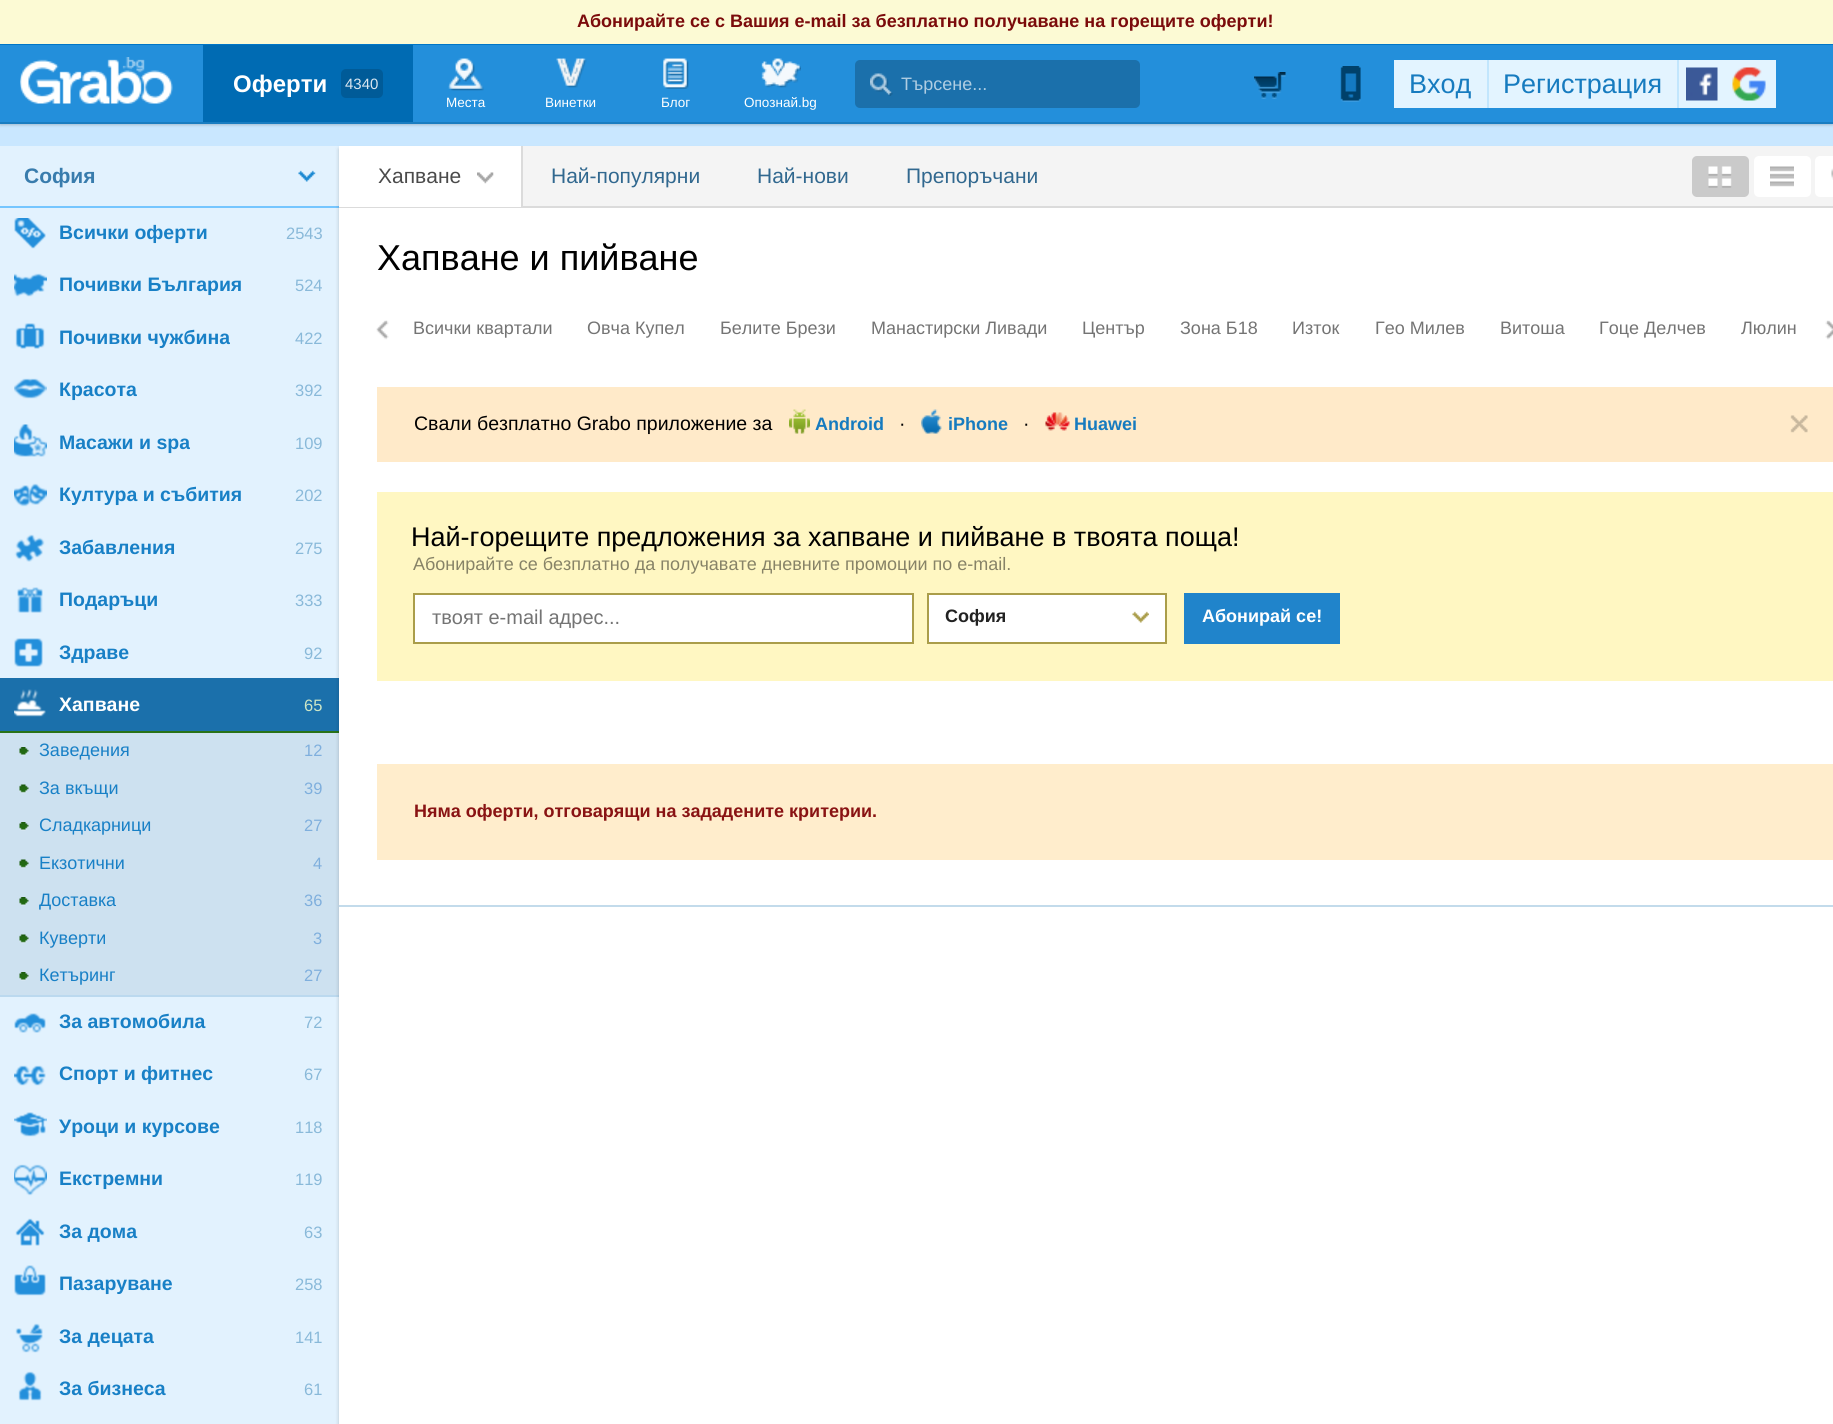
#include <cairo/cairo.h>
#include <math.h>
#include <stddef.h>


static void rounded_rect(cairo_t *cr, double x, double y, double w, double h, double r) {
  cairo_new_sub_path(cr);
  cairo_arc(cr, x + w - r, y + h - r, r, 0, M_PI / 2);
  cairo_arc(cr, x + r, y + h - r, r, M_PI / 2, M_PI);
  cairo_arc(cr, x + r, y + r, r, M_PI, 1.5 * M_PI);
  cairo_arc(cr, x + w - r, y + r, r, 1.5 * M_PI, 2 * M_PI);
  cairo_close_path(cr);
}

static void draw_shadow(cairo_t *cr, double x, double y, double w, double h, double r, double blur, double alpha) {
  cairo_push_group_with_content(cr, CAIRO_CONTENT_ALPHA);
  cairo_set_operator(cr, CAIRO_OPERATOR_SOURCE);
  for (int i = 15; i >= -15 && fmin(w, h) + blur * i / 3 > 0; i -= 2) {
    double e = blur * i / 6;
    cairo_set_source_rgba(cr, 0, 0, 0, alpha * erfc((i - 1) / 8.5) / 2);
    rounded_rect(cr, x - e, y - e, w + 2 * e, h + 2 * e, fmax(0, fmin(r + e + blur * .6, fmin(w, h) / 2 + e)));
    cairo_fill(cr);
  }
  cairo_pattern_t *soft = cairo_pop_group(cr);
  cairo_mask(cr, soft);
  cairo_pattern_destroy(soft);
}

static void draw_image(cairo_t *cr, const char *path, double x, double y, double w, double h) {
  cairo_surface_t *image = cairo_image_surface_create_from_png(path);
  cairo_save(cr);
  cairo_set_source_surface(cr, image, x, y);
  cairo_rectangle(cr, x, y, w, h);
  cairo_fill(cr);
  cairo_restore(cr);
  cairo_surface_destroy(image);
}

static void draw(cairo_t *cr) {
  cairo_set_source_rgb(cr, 201 / 255.0, 231 / 255.0, 1);
  cairo_paint(cr);
  cairo_set_source_rgb(cr, 252 / 255.0, 250 / 255.0, 212 / 255.0);
  cairo_rectangle(cr, 0, 0, 1833, 44);
  cairo_fill(cr);
  cairo_set_source_rgb(cr, 0, 119 / 255.0, 201 / 255.0);
  cairo_rectangle(cr, 0, 44, 1833, 1);
  cairo_fill(cr);
  cairo_set_source_rgb(cr, 0, 0, 0);
  draw_shadow(cr, 0, 47, 1833, 78, 0, 1.5, 0.2);
  cairo_set_source_rgb(cr, 35 / 255.0, 143 / 255.0, 219 / 255.0);
  cairo_rectangle(cr, 0, 45, 1833, 77);
  cairo_fill(cr);
  cairo_set_source_rgb(cr, 25 / 255.0, 125 / 255.0, 193 / 255.0);
  cairo_rectangle(cr, 0, 122, 1833, 2);
  cairo_fill(cr);
  draw_image(cr, "images/1.png", 20, 57, 153, 47);
  cairo_set_source_rgb(cr, 0, 107 / 255.0, 179 / 255.0);
  cairo_rectangle(cr, 203, 45, 210, 77);
  cairo_fill(cr);
  cairo_set_source_rgb(cr, 0, 91 / 255.0, 152 / 255.0);
  rounded_rect(cr, 341, 69, 42, 29, 5);
  cairo_fill(cr);
  cairo_set_source_rgb(cr, 27 / 255.0, 112 / 255.0, 171 / 255.0);
  rounded_rect(cr, 855, 60, 285, 48, 5);
  cairo_fill(cr);
  draw_image(cr, "images/2.png", 870, 73, 23, 23);
  draw_image(cr, "images/3.png", 448, 58, 36, 33);
  draw_image(cr, "images/4.png", 556, 58, 31, 30);
  draw_image(cr, "images/5.png", 663, 58, 26, 31);
  draw_image(cr, "images/6.png", 761, 58, 40, 30);
  draw_image(cr, "images/7.png", 1254, 72, 32, 27);
  draw_image(cr, "images/8.png", 1340, 66, 21, 36);
  cairo_set_source_rgb(cr, 194 / 255.0, 230 / 255.0, 253 / 255.0);
  cairo_rectangle(cr, 1487, 60, 2, 48);
  cairo_fill(cr);
  cairo_rectangle(cr, 1677, 60, 2, 48);
  cairo_fill(cr);
  cairo_set_source_rgb(cr, 227 / 255.0, 244 / 255.0, 1);
  cairo_rectangle(cr, 1679, 60, 97, 48);
  cairo_fill(cr);
  draw_image(cr, "images/9.png", 1732, 67, 34, 34);
  cairo_rectangle(cr, 1394, 60, 93, 48);
  cairo_fill(cr);
  cairo_rectangle(cr, 1489, 60, 188, 48);
  cairo_fill(cr);
  draw_image(cr, "images/10.png", 1686, 67, 32, 34);
  cairo_set_source_rgb(cr, 226 / 255.0, 242 / 255.0, 254 / 255.0);
  cairo_rectangle(cr, 0, 146, 339, 1278);
  cairo_fill(cr);
  draw_image(cr, "images/11.png", 298, 170, 18, 12);
  cairo_set_source_rgb(cr, 117 / 255.0, 198 / 255.0, 1);
  cairo_rectangle(cr, 0, 206, 339, 2);
  cairo_fill(cr);
  cairo_set_source_rgb(cr, 205 / 255.0, 225 / 255.0, 240 / 255.0);
  cairo_rectangle(cr, 0, 733, 339, 262);
  cairo_fill(cr);
  cairo_set_source_rgb(cr, 27 / 255.0, 112 / 255.0, 171 / 255.0);
  cairo_rectangle(cr, 0, 678, 339, 53);
  cairo_fill(cr);
  cairo_set_source_rgb(cr, 40 / 255.0, 114 / 255.0, 23 / 255.0);
  cairo_rectangle(cr, 0, 731, 339, 2);
  cairo_fill(cr);
  cairo_set_source_rgb(cr, 187 / 255.0, 217 / 255.0, 239 / 255.0);
  cairo_rectangle(cr, 0, 995, 339, 2);
  cairo_fill(cr);
  cairo_set_source_rgb(cr, 0, 0, 0);
  draw_shadow(cr, 339, 149, 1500, 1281, 0, 2, 0.2);
  cairo_set_source_rgb(cr, 1, 1, 1);
  cairo_rectangle(cr, 339, 208, 1494, 1216);
  cairo_fill(cr);
  cairo_set_source_rgb(cr, 244 / 255.0, 244 / 255.0, 244 / 255.0);
  cairo_rectangle(cr, 523, 146, 1310, 60);
  cairo_fill(cr);
  cairo_set_source_rgb(cr, 219 / 255.0, 219 / 255.0, 219 / 255.0);
  cairo_rectangle(cr, 339, 206, 1494, 2);
  cairo_fill(cr);
  cairo_set_source_rgb(cr, 1, 1, 1);
  cairo_rectangle(cr, 339, 146, 182, 61);
  cairo_fill(cr);
  cairo_set_source_rgb(cr, 219 / 255.0, 219 / 255.0, 219 / 255.0);
  cairo_rectangle(cr, 521, 146, 2, 61);
  cairo_fill(cr);
  draw_image(cr, "images/12.png", 477, 172, 17, 12);
  cairo_set_source_rgb(cr, 202 / 255.0, 202 / 255.0, 202 / 255.0);
  rounded_rect(cr, 1692, 156, 57, 41, 5);
  cairo_fill(cr);
  draw_image(cr, "images/13.png", 1708, 166, 24, 22);
  cairo_set_source_rgb(cr, 1, 1, 1);
  rounded_rect(cr, 1754, 156, 57, 41, 5);
  cairo_fill(cr);
  draw_image(cr, "images/14.png", 1770, 166, 24, 21);
  rounded_rect(cr, 1815, 156, 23, 41, 5);
  cairo_fill(cr);
  draw_image(cr, "images/15.png", 1831, 168, 2, 12);
  draw_image(cr, "images/16.png", 376, 320, 13, 20);
  draw_image(cr, "images/17.png", 1825, 320, 8, 20);
  cairo_set_source_rgb(cr, 1, 234 / 255.0, 201 / 255.0);
  cairo_rectangle(cr, 377, 387, 1456, 75);
  cairo_fill(cr);
  draw_image(cr, "images/18.png", 789, 409, 21, 25);
  draw_image(cr, "images/19.png", 921, 409, 21, 25);
  draw_image(cr, "images/20.png", 1045, 412, 25, 19);
  draw_image(cr, "images/21.png", 1790, 415, 18, 18);
  cairo_set_source_rgb(cr, 1, 247 / 255.0, 194 / 255.0);
  cairo_rectangle(cr, 377, 492, 1456, 189);
  cairo_fill(cr);
  cairo_set_source_rgb(cr, 1, 1, 1);
  cairo_rectangle(cr, 414, 594, 499, 49);
  cairo_fill_preserve(cr);
  cairo_set_source_rgb(cr, 170 / 255.0, 157 / 255.0, 74 / 255.0);
  cairo_stroke(cr);
  cairo_set_source_rgb(cr, 1, 1, 1);
  cairo_rectangle(cr, 928, 594, 238, 49);
  cairo_fill_preserve(cr);
  cairo_set_source_rgb(cr, 170 / 255.0, 157 / 255.0, 74 / 255.0);
  cairo_stroke(cr);
  draw_image(cr, "images/22.png", 1132, 611, 17, 12);
  cairo_set_source_rgb(cr, 32 / 255.0, 132 / 255.0, 203 / 255.0);
  cairo_rectangle(cr, 1184, 593, 156, 51);
  cairo_fill(cr);
  cairo_set_source_rgb(cr, 1, 237 / 255.0, 204 / 255.0);
  cairo_rectangle(cr, 377, 764, 1456, 96);
  cairo_fill(cr);
  cairo_set_source_rgb(cr, 195 / 255.0, 219 / 255.0, 235 / 255.0);
  cairo_rectangle(cr, 339, 905, 1494, 2);
  cairo_fill(cr);
  draw_image(cr, "images/23.png", 14, 218, 32, 31);
  draw_image(cr, "images/24.png", 14, 273, 33, 24);
  draw_image(cr, "images/25.png", 15, 323, 30, 26);
  draw_image(cr, "images/26.png", 14, 378, 33, 21);
  draw_image(cr, "images/27.png", 14, 424, 33, 33);
  draw_image(cr, "images/28.png", 14, 483, 33, 24);
  draw_image(cr, "images/29.png", 14, 534, 31, 28);
  draw_image(cr, "images/30.png", 17, 587, 26, 26);
  draw_image(cr, "images/31.png", 14, 638, 29, 29);
  draw_image(cr, "images/32.png", 14, 689, 32, 28);
  draw_image(cr, "images/33.png", 19, 747, 10, 9);
  draw_image(cr, "images/34.png", 19, 784, 10, 10);
  draw_image(cr, "images/33.png", 19, 822, 10, 9);
  draw_image(cr, "images/34.png", 19, 859, 10, 10);
  draw_image(cr, "images/33.png", 19, 897, 10, 9);
  draw_image(cr, "images/34.png", 19, 934, 10, 10);
  draw_image(cr, "images/33.png", 19, 972, 10, 9);
  draw_image(cr, "images/35.png", 14, 1013, 32, 20);
  draw_image(cr, "images/36.png", 14, 1065, 32, 21);
  draw_image(cr, "images/37.png", 14, 1112, 33, 25);
  draw_image(cr, "images/38.png", 14, 1164, 33, 32);
  draw_image(cr, "images/39.png", 15, 1218, 30, 28);
  draw_image(cr, "images/40.png", 14, 1265, 32, 31);
  draw_image(cr, "images/41.png", 15, 1323, 28, 30);
  draw_image(cr, "images/42.png", 18, 1371, 24, 30);
  cairo_select_font_face(cr, "Liberation Sans", CAIRO_FONT_SLANT_NORMAL, CAIRO_FONT_WEIGHT_BOLD);
  cairo_set_font_size(cr, 18);
  cairo_set_source_rgb(cr, 123 / 255.0, 11 / 255.0, 11 / 255.0);
  cairo_move_to(cr, 577, 27);
  cairo_show_text(cr, "Абонирайте се с Вашия e-mail за безплатно получаване на горещите оферти!");
  cairo_set_font_size(cr, 24);
  cairo_set_source_rgb(cr, 1, 1, 1);
  cairo_move_to(cr, 233, 92);
  cairo_show_text(cr, "Оферти");
  cairo_select_font_face(cr, "Liberation Sans", CAIRO_FONT_SLANT_NORMAL, CAIRO_FONT_WEIGHT_NORMAL);
  cairo_set_font_size(cr, 15);
  cairo_set_source_rgb(cr, 217 / 255.0, 230 / 255.0, 240 / 255.0);
  cairo_move_to(cr, 345, 89);
  cairo_show_text(cr, "4340");
  cairo_set_font_size(cr, 18);
  cairo_set_source_rgb(cr, 175 / 255.0, 205 / 255.0, 226 / 255.0);
  cairo_move_to(cr, 901, 90);
  cairo_show_text(cr, "Търсене...");
  cairo_set_font_size(cr, 13.5);
  cairo_set_source_rgb(cr, 1, 1, 1);
  cairo_move_to(cr, 446, 107);
  cairo_show_text(cr, "Места");
  cairo_move_to(cr, 545, 107);
  cairo_show_text(cr, "Винетки");
  cairo_move_to(cr, 661, 107);
  cairo_show_text(cr, "Блог");
  cairo_move_to(cr, 744, 107);
  cairo_show_text(cr, "Опознай.bg");
  cairo_set_font_size(cr, 27);
  cairo_set_source_rgb(cr, 22 / 255.0, 123 / 255.0, 191 / 255.0);
  cairo_move_to(cr, 1409, 93);
  cairo_show_text(cr, "Вход");
  cairo_move_to(cr, 1503, 93);
  cairo_show_text(cr, "Регистрация");
  cairo_select_font_face(cr, "Liberation Sans", CAIRO_FONT_SLANT_NORMAL, CAIRO_FONT_WEIGHT_BOLD);
  cairo_set_font_size(cr, 21);
  cairo_set_source_rgb(cr, 56 / 255.0, 124 / 255.0, 173 / 255.0);
  cairo_move_to(cr, 24, 183);
  cairo_show_text(cr, "София");
  cairo_select_font_face(cr, "Liberation Sans", CAIRO_FONT_SLANT_NORMAL, CAIRO_FONT_WEIGHT_NORMAL);
  cairo_set_source_rgb(cr, 74 / 255.0, 74 / 255.0, 74 / 255.0);
  cairo_move_to(cr, 378, 183);
  cairo_show_text(cr, "Хапване");
  cairo_set_source_rgb(cr, 49 / 255.0, 104 / 255.0, 143 / 255.0);
  cairo_move_to(cr, 551, 183);
  cairo_show_text(cr, "Най-популярни");
  cairo_move_to(cr, 757, 183);
  cairo_show_text(cr, "Най-нови");
  cairo_move_to(cr, 906, 183);
  cairo_show_text(cr, "Препоръчани");
  cairo_set_font_size(cr, 36);
  cairo_set_source_rgb(cr, 0, 0, 0);
  cairo_move_to(cr, 377, 270);
  cairo_show_text(cr, "Хапване и пийване");
  cairo_set_font_size(cr, 18);
  cairo_set_source_rgb(cr, 116 / 255.0, 116 / 255.0, 116 / 255.0);
  cairo_move_to(cr, 413, 334);
  cairo_show_text(cr, "Всички квартали");
  cairo_move_to(cr, 587, 334);
  cairo_show_text(cr, "Овча Купел");
  cairo_move_to(cr, 720, 334);
  cairo_show_text(cr, "Белите Брези");
  cairo_move_to(cr, 871, 334);
  cairo_show_text(cr, "Манастирски Ливади");
  cairo_move_to(cr, 1082, 334);
  cairo_show_text(cr, "Център");
  cairo_move_to(cr, 1180, 334);
  cairo_show_text(cr, "Зона Б18");
  cairo_move_to(cr, 1292, 334);
  cairo_show_text(cr, "Изток");
  cairo_move_to(cr, 1375, 334);
  cairo_show_text(cr, "Гео Милев");
  cairo_move_to(cr, 1500, 334);
  cairo_show_text(cr, "Витоша");
  cairo_move_to(cr, 1599, 334);
  cairo_show_text(cr, "Гоце Делчев");
  cairo_move_to(cr, 1741, 334);
  cairo_show_text(cr, "Люлин");
  cairo_set_font_size(cr, 19.5);
  cairo_set_source_rgb(cr, 0, 0, 0);
  cairo_move_to(cr, 414, 430);
  cairo_show_text(cr, "Свали безплатно Grabo приложение за");
  cairo_select_font_face(cr, "Liberation Sans", CAIRO_FONT_SLANT_NORMAL, CAIRO_FONT_WEIGHT_BOLD);
  cairo_set_font_size(cr, 18);
  cairo_set_source_rgb(cr, 22 / 255.0, 123 / 255.0, 191 / 255.0);
  cairo_move_to(cr, 815, 430);
  cairo_show_text(cr, "Android");
  cairo_select_font_face(cr, "Liberation Sans", CAIRO_FONT_SLANT_NORMAL, CAIRO_FONT_WEIGHT_NORMAL);
  cairo_set_font_size(cr, 19.5);
  cairo_set_source_rgb(cr, 0, 0, 0);
  cairo_move_to(cr, 899, 430);
  cairo_show_text(cr, "·");
  cairo_select_font_face(cr, "Liberation Sans", CAIRO_FONT_SLANT_NORMAL, CAIRO_FONT_WEIGHT_BOLD);
  cairo_set_font_size(cr, 18);
  cairo_set_source_rgb(cr, 22 / 255.0, 123 / 255.0, 191 / 255.0);
  cairo_move_to(cr, 948, 430);
  cairo_show_text(cr, "iPhone");
  cairo_select_font_face(cr, "Liberation Sans", CAIRO_FONT_SLANT_NORMAL, CAIRO_FONT_WEIGHT_NORMAL);
  cairo_set_font_size(cr, 19.5);
  cairo_set_source_rgb(cr, 0, 0, 0);
  cairo_move_to(cr, 1023, 430);
  cairo_show_text(cr, "·");
  cairo_select_font_face(cr, "Liberation Sans", CAIRO_FONT_SLANT_NORMAL, CAIRO_FONT_WEIGHT_BOLD);
  cairo_set_font_size(cr, 18);
  cairo_set_source_rgb(cr, 22 / 255.0, 123 / 255.0, 191 / 255.0);
  cairo_move_to(cr, 1074, 430);
  cairo_show_text(cr, "Huawei");
  cairo_select_font_face(cr, "Liberation Sans", CAIRO_FONT_SLANT_NORMAL, CAIRO_FONT_WEIGHT_NORMAL);
  cairo_set_font_size(cr, 27);
  cairo_set_source_rgb(cr, 0, 0, 0);
  cairo_move_to(cr, 411, 546);
  cairo_show_text(cr, "Най-горещите предложения за хапване и пийване в твоята поща!");
  cairo_set_font_size(cr, 18);
  cairo_set_source_rgb(cr, 135 / 255.0, 131 / 255.0, 103 / 255.0);
  cairo_move_to(cr, 413, 570);
  cairo_show_text(cr, "Абонирайте се безплатно да получавате дневните промоции по e-mail.");
  cairo_set_font_size(cr, 20);
  cairo_set_source_rgb(cr, 116 / 255.0, 116 / 255.0, 116 / 255.0);
  cairo_move_to(cr, 432, 624);
  cairo_show_text(cr, "твоят e-mail адрес...");
  cairo_select_font_face(cr, "Liberation Sans", CAIRO_FONT_SLANT_NORMAL, CAIRO_FONT_WEIGHT_BOLD);
  cairo_set_font_size(cr, 18);
  cairo_set_source_rgb(cr, 34 / 255.0, 34 / 255.0, 34 / 255.0);
  cairo_move_to(cr, 945, 622);
  cairo_show_text(cr, "София");
  cairo_set_source_rgb(cr, 1, 1, 1);
  cairo_move_to(cr, 1202, 622);
  cairo_show_text(cr, "Абонирай се!");
  cairo_set_source_rgb(cr, 137 / 255.0, 19 / 255.0, 19 / 255.0);
  cairo_move_to(cr, 414, 817);
  cairo_show_text(cr, "Няма оферти, отговарящи на зададените критерии.");
  cairo_set_font_size(cr, 19.5);
  cairo_set_source_rgb(cr, 24 / 255.0, 128 / 255.0, 198 / 255.0);
  cairo_move_to(cr, 59, 239);
  cairo_show_text(cr, "Всички оферти");
  cairo_select_font_face(cr, "Liberation Sans", CAIRO_FONT_SLANT_NORMAL, CAIRO_FONT_WEIGHT_NORMAL);
  cairo_set_font_size(cr, 16.5);
  cairo_set_source_rgb(cr, 137 / 255.0, 185 / 255.0, 217 / 255.0);
  cairo_move_to(cr, 286, 239);
  cairo_show_text(cr, "2543");
  cairo_select_font_face(cr, "Liberation Sans", CAIRO_FONT_SLANT_NORMAL, CAIRO_FONT_WEIGHT_BOLD);
  cairo_set_font_size(cr, 19.5);
  cairo_set_source_rgb(cr, 24 / 255.0, 128 / 255.0, 198 / 255.0);
  cairo_move_to(cr, 59, 291);
  cairo_show_text(cr, "Почивки България");
  cairo_select_font_face(cr, "Liberation Sans", CAIRO_FONT_SLANT_NORMAL, CAIRO_FONT_WEIGHT_NORMAL);
  cairo_set_font_size(cr, 16.5);
  cairo_set_source_rgb(cr, 137 / 255.0, 185 / 255.0, 217 / 255.0);
  cairo_move_to(cr, 295, 291);
  cairo_show_text(cr, "524");
  cairo_select_font_face(cr, "Liberation Sans", CAIRO_FONT_SLANT_NORMAL, CAIRO_FONT_WEIGHT_BOLD);
  cairo_set_font_size(cr, 19.5);
  cairo_set_source_rgb(cr, 24 / 255.0, 128 / 255.0, 198 / 255.0);
  cairo_move_to(cr, 59, 344);
  cairo_show_text(cr, "Почивки чужбина");
  cairo_select_font_face(cr, "Liberation Sans", CAIRO_FONT_SLANT_NORMAL, CAIRO_FONT_WEIGHT_NORMAL);
  cairo_set_font_size(cr, 16.5);
  cairo_set_source_rgb(cr, 137 / 255.0, 185 / 255.0, 217 / 255.0);
  cairo_move_to(cr, 295, 344);
  cairo_show_text(cr, "422");
  cairo_select_font_face(cr, "Liberation Sans", CAIRO_FONT_SLANT_NORMAL, CAIRO_FONT_WEIGHT_BOLD);
  cairo_set_font_size(cr, 19.5);
  cairo_set_source_rgb(cr, 24 / 255.0, 128 / 255.0, 198 / 255.0);
  cairo_move_to(cr, 59, 396);
  cairo_show_text(cr, "Красота");
  cairo_select_font_face(cr, "Liberation Sans", CAIRO_FONT_SLANT_NORMAL, CAIRO_FONT_WEIGHT_NORMAL);
  cairo_set_font_size(cr, 16.5);
  cairo_set_source_rgb(cr, 137 / 255.0, 185 / 255.0, 217 / 255.0);
  cairo_move_to(cr, 295, 396);
  cairo_show_text(cr, "392");
  cairo_select_font_face(cr, "Liberation Sans", CAIRO_FONT_SLANT_NORMAL, CAIRO_FONT_WEIGHT_BOLD);
  cairo_set_font_size(cr, 19.5);
  cairo_set_source_rgb(cr, 24 / 255.0, 128 / 255.0, 198 / 255.0);
  cairo_move_to(cr, 59, 449);
  cairo_show_text(cr, "Масажи и spa");
  cairo_select_font_face(cr, "Liberation Sans", CAIRO_FONT_SLANT_NORMAL, CAIRO_FONT_WEIGHT_NORMAL);
  cairo_set_font_size(cr, 16.5);
  cairo_set_source_rgb(cr, 137 / 255.0, 185 / 255.0, 217 / 255.0);
  cairo_move_to(cr, 295, 449);
  cairo_show_text(cr, "109");
  cairo_select_font_face(cr, "Liberation Sans", CAIRO_FONT_SLANT_NORMAL, CAIRO_FONT_WEIGHT_BOLD);
  cairo_set_font_size(cr, 19.5);
  cairo_set_source_rgb(cr, 24 / 255.0, 128 / 255.0, 198 / 255.0);
  cairo_move_to(cr, 59, 501);
  cairo_show_text(cr, "Култура и събития");
  cairo_select_font_face(cr, "Liberation Sans", CAIRO_FONT_SLANT_NORMAL, CAIRO_FONT_WEIGHT_NORMAL);
  cairo_set_font_size(cr, 16.5);
  cairo_set_source_rgb(cr, 137 / 255.0, 185 / 255.0, 217 / 255.0);
  cairo_move_to(cr, 295, 501);
  cairo_show_text(cr, "202");
  cairo_select_font_face(cr, "Liberation Sans", CAIRO_FONT_SLANT_NORMAL, CAIRO_FONT_WEIGHT_BOLD);
  cairo_set_font_size(cr, 19.5);
  cairo_set_source_rgb(cr, 24 / 255.0, 128 / 255.0, 198 / 255.0);
  cairo_move_to(cr, 59, 554);
  cairo_show_text(cr, "Забавления");
  cairo_select_font_face(cr, "Liberation Sans", CAIRO_FONT_SLANT_NORMAL, CAIRO_FONT_WEIGHT_NORMAL);
  cairo_set_font_size(cr, 16.5);
  cairo_set_source_rgb(cr, 137 / 255.0, 185 / 255.0, 217 / 255.0);
  cairo_move_to(cr, 295, 554);
  cairo_show_text(cr, "275");
  cairo_select_font_face(cr, "Liberation Sans", CAIRO_FONT_SLANT_NORMAL, CAIRO_FONT_WEIGHT_BOLD);
  cairo_set_font_size(cr, 19.5);
  cairo_set_source_rgb(cr, 24 / 255.0, 128 / 255.0, 198 / 255.0);
  cairo_move_to(cr, 59, 606);
  cairo_show_text(cr, "Подаръци");
  cairo_select_font_face(cr, "Liberation Sans", CAIRO_FONT_SLANT_NORMAL, CAIRO_FONT_WEIGHT_NORMAL);
  cairo_set_font_size(cr, 16.5);
  cairo_set_source_rgb(cr, 137 / 255.0, 185 / 255.0, 217 / 255.0);
  cairo_move_to(cr, 295, 606);
  cairo_show_text(cr, "333");
  cairo_select_font_face(cr, "Liberation Sans", CAIRO_FONT_SLANT_NORMAL, CAIRO_FONT_WEIGHT_BOLD);
  cairo_set_font_size(cr, 19.5);
  cairo_set_source_rgb(cr, 24 / 255.0, 128 / 255.0, 198 / 255.0);
  cairo_move_to(cr, 59, 659);
  cairo_show_text(cr, "Здраве");
  cairo_select_font_face(cr, "Liberation Sans", CAIRO_FONT_SLANT_NORMAL, CAIRO_FONT_WEIGHT_NORMAL);
  cairo_set_font_size(cr, 16.5);
  cairo_set_source_rgb(cr, 137 / 255.0, 185 / 255.0, 217 / 255.0);
  cairo_move_to(cr, 304, 659);
  cairo_show_text(cr, "92");
  cairo_select_font_face(cr, "Liberation Sans", CAIRO_FONT_SLANT_NORMAL, CAIRO_FONT_WEIGHT_BOLD);
  cairo_set_font_size(cr, 19.5);
  cairo_set_source_rgb(cr, 1, 1, 1);
  cairo_move_to(cr, 59, 711);
  cairo_show_text(cr, "Хапване");
  cairo_select_font_face(cr, "Liberation Sans", CAIRO_FONT_SLANT_NORMAL, CAIRO_FONT_WEIGHT_NORMAL);
  cairo_set_font_size(cr, 16.5);
  cairo_set_source_rgb(cr, 204 / 255.0, 230 / 255.0, 198 / 255.0);
  cairo_move_to(cr, 304, 711);
  cairo_show_text(cr, "65");
  cairo_set_font_size(cr, 18);
  cairo_set_source_rgb(cr, 24 / 255.0, 128 / 255.0, 198 / 255.0);
  cairo_move_to(cr, 39, 756);
  cairo_show_text(cr, "Заведения");
  cairo_set_font_size(cr, 16.5);
  cairo_set_source_rgb(cr, 127 / 255.0, 175 / 255.0, 221 / 255.0);
  cairo_move_to(cr, 304, 756);
  cairo_show_text(cr, "12");
  cairo_set_font_size(cr, 18);
  cairo_set_source_rgb(cr, 24 / 255.0, 128 / 255.0, 198 / 255.0);
  cairo_move_to(cr, 39, 794);
  cairo_show_text(cr, "За вкъщи");
  cairo_set_font_size(cr, 16.5);
  cairo_set_source_rgb(cr, 127 / 255.0, 175 / 255.0, 221 / 255.0);
  cairo_move_to(cr, 304, 794);
  cairo_show_text(cr, "39");
  cairo_set_font_size(cr, 18);
  cairo_set_source_rgb(cr, 24 / 255.0, 128 / 255.0, 198 / 255.0);
  cairo_move_to(cr, 39, 831);
  cairo_show_text(cr, "Сладкарници");
  cairo_set_font_size(cr, 16.5);
  cairo_set_source_rgb(cr, 127 / 255.0, 175 / 255.0, 221 / 255.0);
  cairo_move_to(cr, 304, 831);
  cairo_show_text(cr, "27");
  cairo_set_font_size(cr, 18);
  cairo_set_source_rgb(cr, 24 / 255.0, 128 / 255.0, 198 / 255.0);
  cairo_move_to(cr, 39, 869);
  cairo_show_text(cr, "Екзотични");
  cairo_set_font_size(cr, 16.5);
  cairo_set_source_rgb(cr, 127 / 255.0, 175 / 255.0, 221 / 255.0);
  cairo_move_to(cr, 313, 869);
  cairo_show_text(cr, "4");
  cairo_set_font_size(cr, 18);
  cairo_set_source_rgb(cr, 24 / 255.0, 128 / 255.0, 198 / 255.0);
  cairo_move_to(cr, 39, 906);
  cairo_show_text(cr, "Доставка");
  cairo_set_font_size(cr, 16.5);
  cairo_set_source_rgb(cr, 127 / 255.0, 175 / 255.0, 221 / 255.0);
  cairo_move_to(cr, 304, 906);
  cairo_show_text(cr, "36");
  cairo_set_font_size(cr, 18);
  cairo_set_source_rgb(cr, 24 / 255.0, 128 / 255.0, 198 / 255.0);
  cairo_move_to(cr, 39, 944);
  cairo_show_text(cr, "Куверти");
  cairo_set_font_size(cr, 16.5);
  cairo_set_source_rgb(cr, 127 / 255.0, 175 / 255.0, 221 / 255.0);
  cairo_move_to(cr, 313, 944);
  cairo_show_text(cr, "3");
  cairo_set_font_size(cr, 18);
  cairo_set_source_rgb(cr, 24 / 255.0, 128 / 255.0, 198 / 255.0);
  cairo_move_to(cr, 39, 981);
  cairo_show_text(cr, "Кетъринг");
  cairo_set_font_size(cr, 16.5);
  cairo_set_source_rgb(cr, 127 / 255.0, 175 / 255.0, 221 / 255.0);
  cairo_move_to(cr, 304, 981);
  cairo_show_text(cr, "27");
  cairo_select_font_face(cr, "Liberation Sans", CAIRO_FONT_SLANT_NORMAL, CAIRO_FONT_WEIGHT_BOLD);
  cairo_set_font_size(cr, 19.5);
  cairo_set_source_rgb(cr, 24 / 255.0, 128 / 255.0, 198 / 255.0);
  cairo_move_to(cr, 59, 1028);
  cairo_show_text(cr, "За автомобила");
  cairo_select_font_face(cr, "Liberation Sans", CAIRO_FONT_SLANT_NORMAL, CAIRO_FONT_WEIGHT_NORMAL);
  cairo_set_font_size(cr, 16.5);
  cairo_set_source_rgb(cr, 137 / 255.0, 185 / 255.0, 217 / 255.0);
  cairo_move_to(cr, 304, 1028);
  cairo_show_text(cr, "72");
  cairo_select_font_face(cr, "Liberation Sans", CAIRO_FONT_SLANT_NORMAL, CAIRO_FONT_WEIGHT_BOLD);
  cairo_set_font_size(cr, 19.5);
  cairo_set_source_rgb(cr, 24 / 255.0, 128 / 255.0, 198 / 255.0);
  cairo_move_to(cr, 59, 1080);
  cairo_show_text(cr, "Спорт и фитнес");
  cairo_select_font_face(cr, "Liberation Sans", CAIRO_FONT_SLANT_NORMAL, CAIRO_FONT_WEIGHT_NORMAL);
  cairo_set_font_size(cr, 16.5);
  cairo_set_source_rgb(cr, 137 / 255.0, 185 / 255.0, 217 / 255.0);
  cairo_move_to(cr, 304, 1080);
  cairo_show_text(cr, "67");
  cairo_select_font_face(cr, "Liberation Sans", CAIRO_FONT_SLANT_NORMAL, CAIRO_FONT_WEIGHT_BOLD);
  cairo_set_font_size(cr, 19.5);
  cairo_set_source_rgb(cr, 24 / 255.0, 128 / 255.0, 198 / 255.0);
  cairo_move_to(cr, 59, 1133);
  cairo_show_text(cr, "Уроци и курсове");
  cairo_select_font_face(cr, "Liberation Sans", CAIRO_FONT_SLANT_NORMAL, CAIRO_FONT_WEIGHT_NORMAL);
  cairo_set_font_size(cr, 16.5);
  cairo_set_source_rgb(cr, 137 / 255.0, 185 / 255.0, 217 / 255.0);
  cairo_move_to(cr, 295, 1133);
  cairo_show_text(cr, "118");
  cairo_select_font_face(cr, "Liberation Sans", CAIRO_FONT_SLANT_NORMAL, CAIRO_FONT_WEIGHT_BOLD);
  cairo_set_font_size(cr, 19.5);
  cairo_set_source_rgb(cr, 24 / 255.0, 128 / 255.0, 198 / 255.0);
  cairo_move_to(cr, 59, 1185);
  cairo_show_text(cr, "Екстремни");
  cairo_select_font_face(cr, "Liberation Sans", CAIRO_FONT_SLANT_NORMAL, CAIRO_FONT_WEIGHT_NORMAL);
  cairo_set_font_size(cr, 16.5);
  cairo_set_source_rgb(cr, 137 / 255.0, 185 / 255.0, 217 / 255.0);
  cairo_move_to(cr, 295, 1185);
  cairo_show_text(cr, "119");
  cairo_select_font_face(cr, "Liberation Sans", CAIRO_FONT_SLANT_NORMAL, CAIRO_FONT_WEIGHT_BOLD);
  cairo_set_font_size(cr, 19.5);
  cairo_set_source_rgb(cr, 24 / 255.0, 128 / 255.0, 198 / 255.0);
  cairo_move_to(cr, 59, 1238);
  cairo_show_text(cr, "За дома");
  cairo_select_font_face(cr, "Liberation Sans", CAIRO_FONT_SLANT_NORMAL, CAIRO_FONT_WEIGHT_NORMAL);
  cairo_set_font_size(cr, 16.5);
  cairo_set_source_rgb(cr, 137 / 255.0, 185 / 255.0, 217 / 255.0);
  cairo_move_to(cr, 304, 1238);
  cairo_show_text(cr, "63");
  cairo_select_font_face(cr, "Liberation Sans", CAIRO_FONT_SLANT_NORMAL, CAIRO_FONT_WEIGHT_BOLD);
  cairo_set_font_size(cr, 19.5);
  cairo_set_source_rgb(cr, 24 / 255.0, 128 / 255.0, 198 / 255.0);
  cairo_move_to(cr, 59, 1290);
  cairo_show_text(cr, "Пазаруване");
  cairo_select_font_face(cr, "Liberation Sans", CAIRO_FONT_SLANT_NORMAL, CAIRO_FONT_WEIGHT_NORMAL);
  cairo_set_font_size(cr, 16.5);
  cairo_set_source_rgb(cr, 137 / 255.0, 185 / 255.0, 217 / 255.0);
  cairo_move_to(cr, 295, 1290);
  cairo_show_text(cr, "258");
  cairo_select_font_face(cr, "Liberation Sans", CAIRO_FONT_SLANT_NORMAL, CAIRO_FONT_WEIGHT_BOLD);
  cairo_set_font_size(cr, 19.5);
  cairo_set_source_rgb(cr, 24 / 255.0, 128 / 255.0, 198 / 255.0);
  cairo_move_to(cr, 59, 1343);
  cairo_show_text(cr, "За децата");
  cairo_select_font_face(cr, "Liberation Sans", CAIRO_FONT_SLANT_NORMAL, CAIRO_FONT_WEIGHT_NORMAL);
  cairo_set_font_size(cr, 16.5);
  cairo_set_source_rgb(cr, 137 / 255.0, 185 / 255.0, 217 / 255.0);
  cairo_move_to(cr, 295, 1343);
  cairo_show_text(cr, "141");
  cairo_select_font_face(cr, "Liberation Sans", CAIRO_FONT_SLANT_NORMAL, CAIRO_FONT_WEIGHT_BOLD);
  cairo_set_font_size(cr, 19.5);
  cairo_set_source_rgb(cr, 24 / 255.0, 128 / 255.0, 198 / 255.0);
  cairo_move_to(cr, 59, 1395);
  cairo_show_text(cr, "За бизнеса");
  cairo_select_font_face(cr, "Liberation Sans", CAIRO_FONT_SLANT_NORMAL, CAIRO_FONT_WEIGHT_NORMAL);
  cairo_set_font_size(cr, 16.5);
  cairo_set_source_rgb(cr, 137 / 255.0, 185 / 255.0, 217 / 255.0);
  cairo_move_to(cr, 304, 1395);
  cairo_show_text(cr, "61");
}

int main(void) {
  cairo_surface_t *surface = cairo_image_surface_create(CAIRO_FORMAT_RGB24, 1833, 1424);
  cairo_t *cr = cairo_create(surface);
  cairo_font_options_t *options = cairo_font_options_create();
  cairo_font_options_set_hint_metrics(options, CAIRO_HINT_METRICS_OFF);
  cairo_font_options_set_hint_style(options, CAIRO_HINT_STYLE_NONE);
  cairo_set_font_options(cr, options);
  cairo_set_miter_limit(cr, 4);
  draw(cr);
  cairo_surface_write_to_png(surface, "out.png");
  cairo_font_options_destroy(options);
  cairo_destroy(cr);
  cairo_surface_destroy(surface);
  return 0;
}
